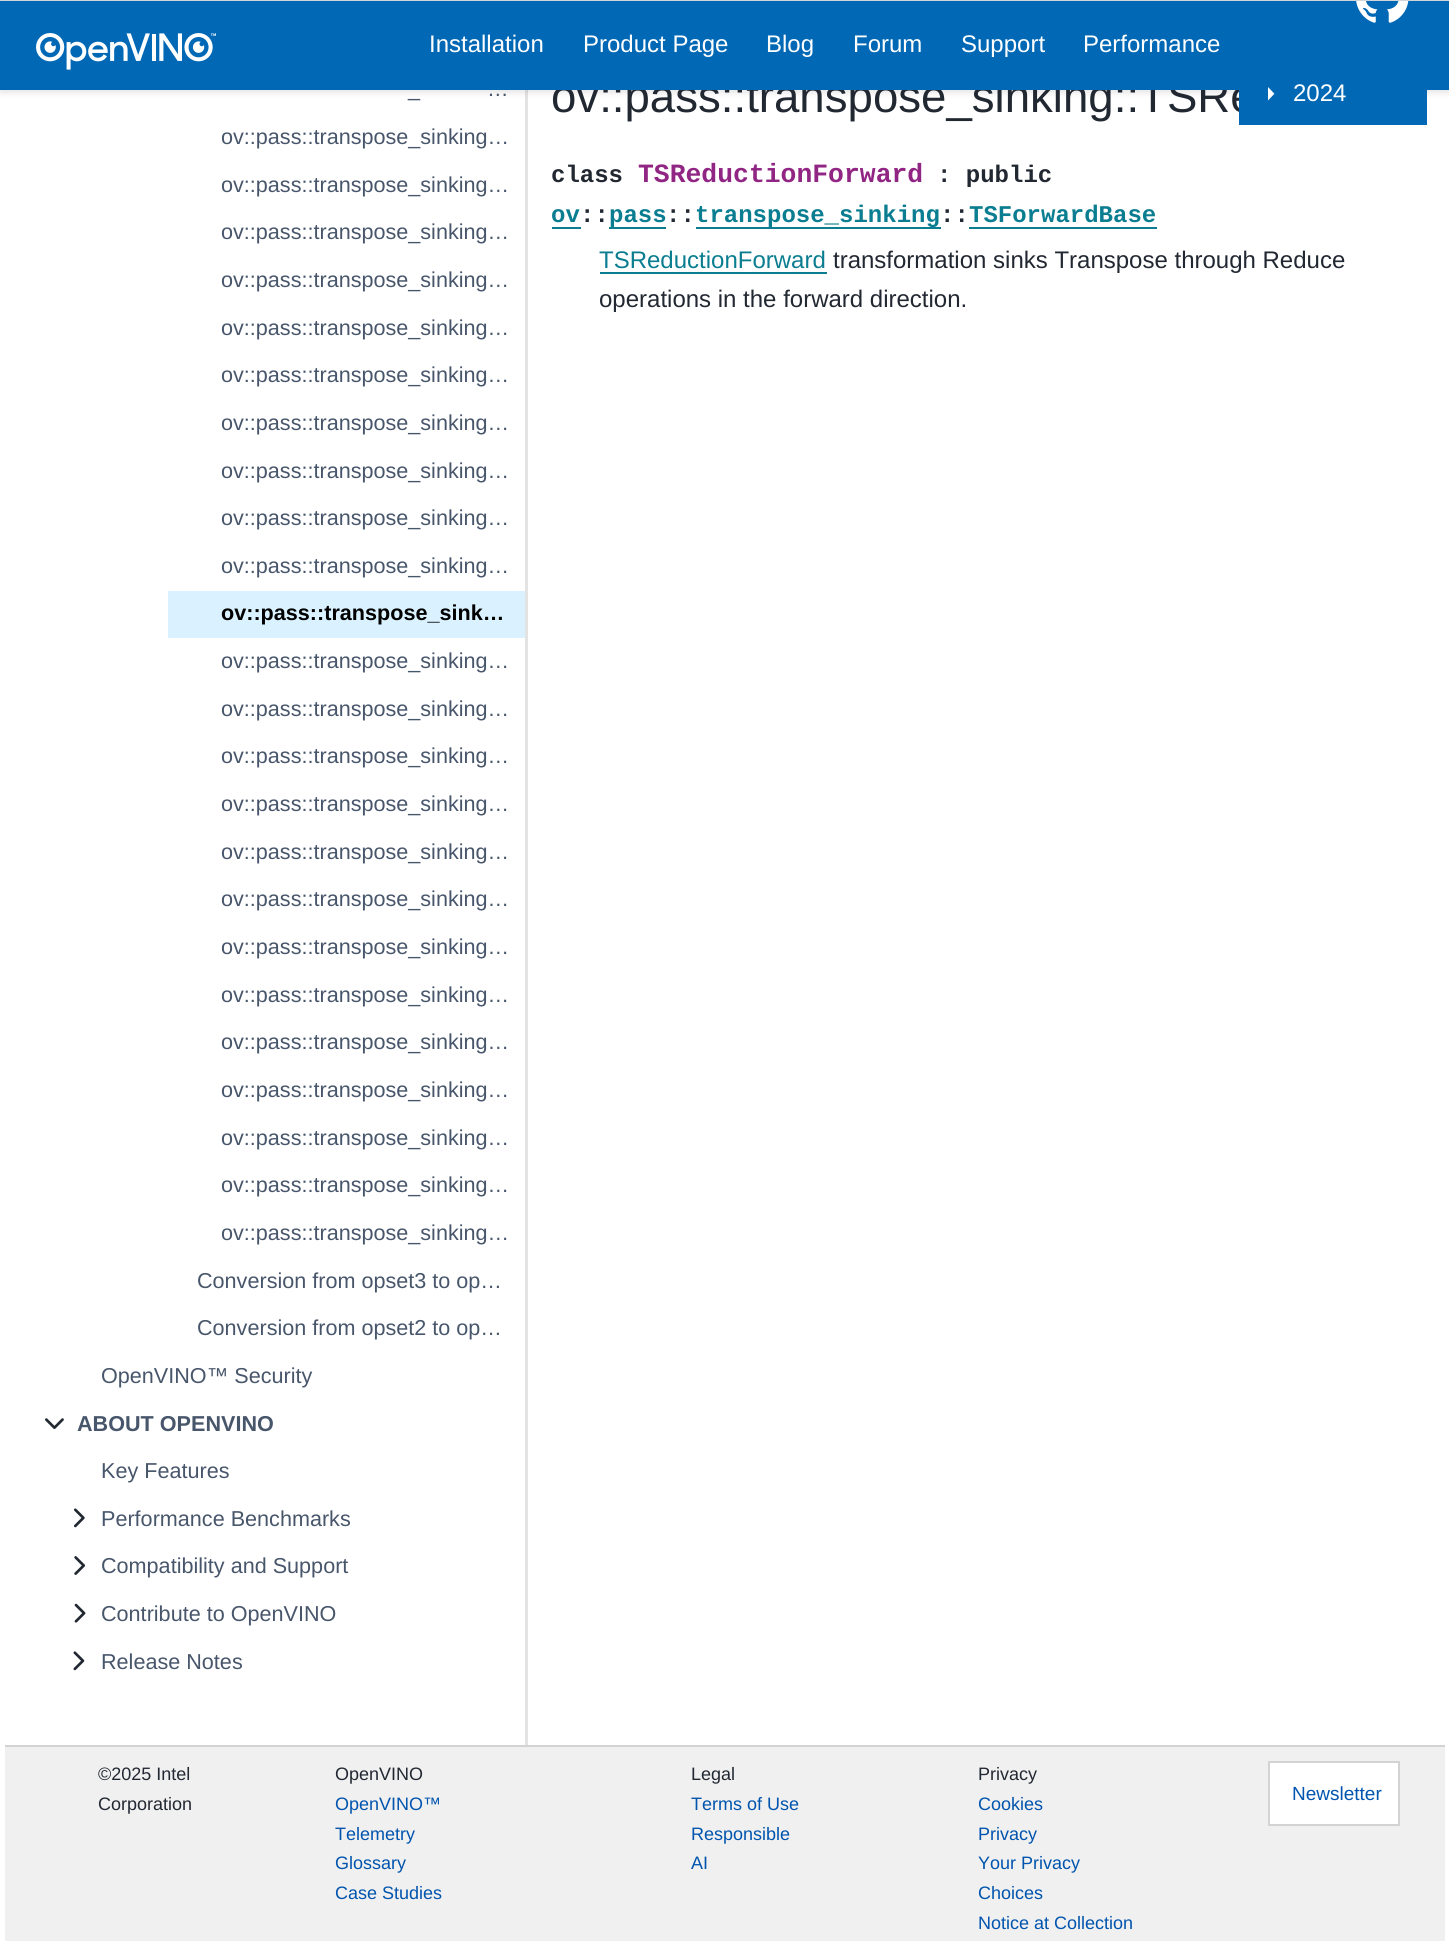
#include <cairo/cairo.h>
#include <math.h>
#include <stddef.h>


static void rounded_rect(cairo_t *cr, double x, double y, double w, double h, double r) {
  cairo_new_sub_path(cr);
  cairo_arc(cr, x + w - r, y + h - r, r, 0, M_PI / 2);
  cairo_arc(cr, x + r, y + h - r, r, M_PI / 2, M_PI);
  cairo_arc(cr, x + r, y + r, r, M_PI, 1.5 * M_PI);
  cairo_arc(cr, x + w - r, y + r, r, 1.5 * M_PI, 2 * M_PI);
  cairo_close_path(cr);
}

static void draw_shadow(cairo_t *cr, double x, double y, double w, double h, double r, double blur, double alpha) {
  cairo_push_group_with_content(cr, CAIRO_CONTENT_ALPHA);
  cairo_set_operator(cr, CAIRO_OPERATOR_SOURCE);
  for (int i = 15; i >= -15 && fmin(w, h) + blur * i / 3 > 0; i -= 2) {
    double e = blur * i / 6;
    cairo_set_source_rgba(cr, 0, 0, 0, alpha * erfc((i - 1) / 8.5) / 2);
    rounded_rect(cr, x - e, y - e, w + 2 * e, h + 2 * e, fmax(0, fmin(r + e + blur * .6, fmin(w, h) / 2 + e)));
    cairo_fill(cr);
  }
  cairo_pattern_t *soft = cairo_pop_group(cr);
  cairo_mask(cr, soft);
  cairo_pattern_destroy(soft);
}

static void draw_image(cairo_t *cr, const char *path, double x, double y, double w, double h) {
  cairo_surface_t *image = cairo_image_surface_create_from_png(path);
  cairo_save(cr);
  cairo_set_source_surface(cr, image, x, y);
  cairo_rectangle(cr, x, y, w, h);
  cairo_fill(cr);
  cairo_restore(cr);
  cairo_surface_destroy(image);
}

static void draw(cairo_t *cr) {
  cairo_set_source_rgb(cr, 1, 1, 1);
  cairo_paint(cr);
  cairo_set_source_rgb(cr, 227 / 255.0, 227 / 255.0, 227 / 255.0);
  cairo_rectangle(cr, 525, 90, 3, 1655);
  cairo_fill(cr);
  cairo_set_source_rgb(cr, 0, 0, 0);
  draw_shadow(cr, 0, 3, 1449, 90, 0, 3, 0.1);
  cairo_set_source_rgb(cr, 209 / 255.0, 213 / 255.0, 218 / 255.0);
  cairo_rectangle(cr, 0, 0, 1449, 1);
  cairo_fill(cr);
  cairo_set_source_rgb(cr, 218 / 255.0, 242 / 255.0, 1);
  cairo_rectangle(cr, 168, 591, 357, 47);
  cairo_fill(cr);
  draw_image(cr, "images/4.png", 45, 1418, 19, 11);
  draw_image(cr, "images/5.png", 74, 1508, 11, 20);
  draw_image(cr, "images/6.png", 74, 1556, 12, 19);
  draw_image(cr, "images/7.png", 74, 1603, 12, 20);
  draw_image(cr, "images/8.png", 73, 1651, 12, 20);
  cairo_set_source_rgb(cr, 10 / 255.0, 125 / 255.0, 145 / 255.0);
  cairo_rectangle(cr, 552, 227, 29, 2);
  cairo_fill(cr);
  cairo_rectangle(cr, 609, 227, 57, 2);
  cairo_fill(cr);
  cairo_rectangle(cr, 696, 227, 245, 2);
  cairo_fill(cr);
  cairo_rectangle(cr, 969, 227, 188, 2);
  cairo_fill(cr);
  cairo_rectangle(cr, 600, 272, 227, 2);
  cairo_fill(cr);
  cairo_set_source_rgb(cr, 240 / 255.0, 240 / 255.0, 240 / 255.0);
  cairo_rectangle(cr, 5, 1747, 1440, 194);
  cairo_fill(cr);
  cairo_set_source_rgb(cr, 211 / 255.0, 211 / 255.0, 211 / 255.0);
  cairo_rectangle(cr, 5, 1745, 1440, 2);
  cairo_fill(cr);
  cairo_set_source_rgb(cr, 1, 1, 1);
  cairo_rectangle(cr, 1269, 1762, 130, 63);
  cairo_fill_preserve(cr);
  cairo_set_source_rgb(cr, 211 / 255.0, 211 / 255.0, 211 / 255.0);
  cairo_stroke(cr);
  cairo_select_font_face(cr, "Liberation Sans", CAIRO_FONT_SLANT_NORMAL, CAIRO_FONT_WEIGHT_NORMAL);
  cairo_set_font_size(cr, 21.6);
  cairo_set_source_rgb(cr, 72 / 255.0, 86 / 255.0, 107 / 255.0);
  cairo_move_to(cr, 487, 96);
  cairo_show_text(cr, "…");
  cairo_move_to(cr, 408, 96);
  cairo_show_text(cr, "_");
  cairo_move_to(cr, 221, 144);
  cairo_show_text(cr, "ov::pass::transpose_sinking…");
  cairo_move_to(cr, 221, 192);
  cairo_show_text(cr, "ov::pass::transpose_sinking…");
  cairo_move_to(cr, 221, 239);
  cairo_show_text(cr, "ov::pass::transpose_sinking…");
  cairo_move_to(cr, 221, 287);
  cairo_show_text(cr, "ov::pass::transpose_sinking…");
  cairo_move_to(cr, 221, 335);
  cairo_show_text(cr, "ov::pass::transpose_sinking…");
  cairo_move_to(cr, 221, 382);
  cairo_show_text(cr, "ov::pass::transpose_sinking…");
  cairo_move_to(cr, 221, 430);
  cairo_show_text(cr, "ov::pass::transpose_sinking…");
  cairo_move_to(cr, 221, 478);
  cairo_show_text(cr, "ov::pass::transpose_sinking…");
  cairo_move_to(cr, 221, 525);
  cairo_show_text(cr, "ov::pass::transpose_sinking…");
  cairo_move_to(cr, 221, 573);
  cairo_show_text(cr, "ov::pass::transpose_sinking…");
  cairo_select_font_face(cr, "Liberation Sans", CAIRO_FONT_SLANT_NORMAL, CAIRO_FONT_WEIGHT_BOLD);
  cairo_set_source_rgb(cr, 0, 0, 0);
  cairo_move_to(cr, 221, 620);
  cairo_show_text(cr, "ov::pass::transpose_sink…");
  cairo_select_font_face(cr, "Liberation Sans", CAIRO_FONT_SLANT_NORMAL, CAIRO_FONT_WEIGHT_NORMAL);
  cairo_set_source_rgb(cr, 72 / 255.0, 86 / 255.0, 107 / 255.0);
  cairo_move_to(cr, 221, 668);
  cairo_show_text(cr, "ov::pass::transpose_sinking…");
  cairo_move_to(cr, 221, 716);
  cairo_show_text(cr, "ov::pass::transpose_sinking…");
  cairo_move_to(cr, 221, 763);
  cairo_show_text(cr, "ov::pass::transpose_sinking…");
  cairo_move_to(cr, 221, 811);
  cairo_show_text(cr, "ov::pass::transpose_sinking…");
  cairo_move_to(cr, 221, 859);
  cairo_show_text(cr, "ov::pass::transpose_sinking…");
  cairo_move_to(cr, 221, 906);
  cairo_show_text(cr, "ov::pass::transpose_sinking…");
  cairo_move_to(cr, 221, 954);
  cairo_show_text(cr, "ov::pass::transpose_sinking…");
  cairo_move_to(cr, 221, 1002);
  cairo_show_text(cr, "ov::pass::transpose_sinking…");
  cairo_move_to(cr, 221, 1049);
  cairo_show_text(cr, "ov::pass::transpose_sinking…");
  cairo_move_to(cr, 221, 1097);
  cairo_show_text(cr, "ov::pass::transpose_sinking…");
  cairo_move_to(cr, 221, 1145);
  cairo_show_text(cr, "ov::pass::transpose_sinking…");
  cairo_move_to(cr, 221, 1192);
  cairo_show_text(cr, "ov::pass::transpose_sinking…");
  cairo_move_to(cr, 221, 1240);
  cairo_show_text(cr, "ov::pass::transpose_sinking…");
  cairo_move_to(cr, 197, 1288);
  cairo_show_text(cr, "Conversion from opset3 to op…");
  cairo_move_to(cr, 197, 1335);
  cairo_show_text(cr, "Conversion from opset2 to op…");
  cairo_move_to(cr, 101, 1383);
  cairo_show_text(cr, "OpenVINO™ Security");
  cairo_select_font_face(cr, "Liberation Sans", CAIRO_FONT_SLANT_NORMAL, CAIRO_FONT_WEIGHT_BOLD);
  cairo_move_to(cr, 77, 1431);
  cairo_show_text(cr, "ABOUT OPENVINO");
  cairo_select_font_face(cr, "Liberation Sans", CAIRO_FONT_SLANT_NORMAL, CAIRO_FONT_WEIGHT_NORMAL);
  cairo_move_to(cr, 101, 1478);
  cairo_show_text(cr, "Key Features");
  cairo_move_to(cr, 101, 1526);
  cairo_show_text(cr, "Performance Benchmarks");
  cairo_move_to(cr, 101, 1573);
  cairo_show_text(cr, "Compatibility and Support");
  cairo_move_to(cr, 101, 1621);
  cairo_show_text(cr, "Contribute to OpenVINO");
  cairo_move_to(cr, 101, 1669);
  cairo_show_text(cr, "Release Notes");
  cairo_set_font_size(cr, 45.6);
  cairo_set_source_rgb(cr, 34 / 255.0, 40 / 255.0, 50 / 255.0);
  cairo_move_to(cr, 551, 112);
  cairo_show_text(cr, "ov::pass::transpose_sinking::TSRe");
  cairo_set_source_rgb(cr, 0, 104 / 255.0, 181 / 255.0);
  cairo_rectangle(cr, 1239, 90, 188, 35);
  cairo_fill(cr);
  cairo_rectangle(cr, 0, 1, 1449, 89);
  cairo_fill(cr);
  cairo_set_font_size(cr, 24);
  cairo_set_source_rgb(cr, 1, 1, 1);
  cairo_move_to(cr, 1293, 101);
  cairo_show_text(cr, "2024");
  draw_image(cr, "images/3.png", 1268, 87, 7, 14);
  draw_image(cr, "images/1.png", 36, 33, 180, 37);
  draw_image(cr, "images/2.png", 1356, 1, 53, 22);
  cairo_move_to(cr, 1083, 52);
  cairo_show_text(cr, "Performance");
  cairo_move_to(cr, 961, 52);
  cairo_show_text(cr, "Support");
  cairo_move_to(cr, 853, 52);
  cairo_show_text(cr, "Forum");
  cairo_move_to(cr, 766, 52);
  cairo_show_text(cr, "Blog");
  cairo_move_to(cr, 583, 52);
  cairo_show_text(cr, "Product Page");
  cairo_move_to(cr, 429, 52);
  cairo_show_text(cr, "Installation");
  cairo_select_font_face(cr, "Liberation Mono", CAIRO_FONT_SLANT_NORMAL, CAIRO_FONT_WEIGHT_BOLD);
  cairo_set_source_rgb(cr, 34 / 255.0, 40 / 255.0, 50 / 255.0);
  cairo_move_to(cr, 551, 182);
  cairo_show_text(cr, "class");
  cairo_set_font_size(cr, 26.4);
  cairo_set_source_rgb(cr, 145 / 255.0, 37 / 255.0, 131 / 255.0);
  cairo_move_to(cr, 638, 182);
  cairo_show_text(cr, "TSReductionForward");
  cairo_set_font_size(cr, 24);
  cairo_set_source_rgb(cr, 34 / 255.0, 40 / 255.0, 50 / 255.0);
  cairo_move_to(cr, 937, 182);
  cairo_show_text(cr, ": public");
  cairo_set_source_rgb(cr, 10 / 255.0, 125 / 255.0, 145 / 255.0);
  cairo_move_to(cr, 551, 222);
  cairo_show_text(cr, "ov");
  cairo_set_source_rgb(cr, 34 / 255.0, 40 / 255.0, 50 / 255.0);
  cairo_move_to(cr, 580, 222);
  cairo_show_text(cr, "::");
  cairo_set_source_rgb(cr, 10 / 255.0, 125 / 255.0, 145 / 255.0);
  cairo_move_to(cr, 609, 222);
  cairo_show_text(cr, "pass");
  cairo_set_source_rgb(cr, 34 / 255.0, 40 / 255.0, 50 / 255.0);
  cairo_move_to(cr, 666, 222);
  cairo_show_text(cr, "::");
  cairo_set_source_rgb(cr, 10 / 255.0, 125 / 255.0, 145 / 255.0);
  cairo_move_to(cr, 695, 222);
  cairo_show_text(cr, "transpose_sinking");
  cairo_set_source_rgb(cr, 34 / 255.0, 40 / 255.0, 50 / 255.0);
  cairo_move_to(cr, 940, 222);
  cairo_show_text(cr, "::");
  cairo_set_source_rgb(cr, 10 / 255.0, 125 / 255.0, 145 / 255.0);
  cairo_move_to(cr, 969, 222);
  cairo_show_text(cr, "TSForwardBase");
  cairo_select_font_face(cr, "Liberation Sans", CAIRO_FONT_SLANT_NORMAL, CAIRO_FONT_WEIGHT_NORMAL);
  cairo_move_to(cr, 599, 268);
  cairo_show_text(cr, "TSReductionForward");
  cairo_set_source_rgb(cr, 34 / 255.0, 40 / 255.0, 50 / 255.0);
  cairo_move_to(cr, 833, 268);
  cairo_show_text(cr, "transformation sinks Transpose through Reduce");
  cairo_move_to(cr, 599, 307);
  cairo_show_text(cr, "operations in the forward direction.");
  cairo_set_font_size(cr, 18);
  cairo_move_to(cr, 98, 1780);
  cairo_show_text(cr, "©2025 Intel");
  cairo_move_to(cr, 98, 1810);
  cairo_show_text(cr, "Corporation");
  cairo_move_to(cr, 335, 1780);
  cairo_show_text(cr, "OpenVINO");
  cairo_set_source_rgb(cr, 0, 84 / 255.0, 174 / 255.0);
  cairo_move_to(cr, 335, 1810);
  cairo_show_text(cr, "OpenVINO™");
  cairo_move_to(cr, 335, 1840);
  cairo_show_text(cr, "Telemetry");
  cairo_move_to(cr, 335, 1869);
  cairo_show_text(cr, "Glossary");
  cairo_move_to(cr, 335, 1899);
  cairo_show_text(cr, "Case Studies");
  cairo_set_source_rgb(cr, 34 / 255.0, 40 / 255.0, 50 / 255.0);
  cairo_move_to(cr, 691, 1780);
  cairo_show_text(cr, "Legal");
  cairo_set_source_rgb(cr, 0, 84 / 255.0, 174 / 255.0);
  cairo_move_to(cr, 691, 1810);
  cairo_show_text(cr, "Terms of Use");
  cairo_move_to(cr, 691, 1840);
  cairo_show_text(cr, "Responsible");
  cairo_move_to(cr, 691, 1869);
  cairo_show_text(cr, "AI");
  cairo_set_source_rgb(cr, 34 / 255.0, 40 / 255.0, 50 / 255.0);
  cairo_move_to(cr, 978, 1780);
  cairo_show_text(cr, "Privacy");
  cairo_set_source_rgb(cr, 0, 84 / 255.0, 174 / 255.0);
  cairo_move_to(cr, 978, 1810);
  cairo_show_text(cr, "Cookies");
  cairo_move_to(cr, 978, 1840);
  cairo_show_text(cr, "Privacy");
  cairo_move_to(cr, 978, 1869);
  cairo_show_text(cr, "Your Privacy");
  cairo_move_to(cr, 978, 1899);
  cairo_show_text(cr, "Choices");
  cairo_move_to(cr, 978, 1929);
  cairo_show_text(cr, "Notice at Collection");
  cairo_set_font_size(cr, 19);
  cairo_move_to(cr, 1292, 1800);
  cairo_show_text(cr, "Newsletter");
}

int main(void) {
  cairo_surface_t *surface = cairo_image_surface_create(CAIRO_FORMAT_RGB24, 1449, 1941);
  cairo_t *cr = cairo_create(surface);
  cairo_font_options_t *options = cairo_font_options_create();
  cairo_font_options_set_hint_metrics(options, CAIRO_HINT_METRICS_OFF);
  cairo_font_options_set_hint_style(options, CAIRO_HINT_STYLE_NONE);
  cairo_set_font_options(cr, options);
  cairo_set_miter_limit(cr, 4);
  draw(cr);
  cairo_surface_write_to_png(surface, "out.png");
  cairo_font_options_destroy(options);
  cairo_destroy(cr);
  cairo_surface_destroy(surface);
  return 0;
}
